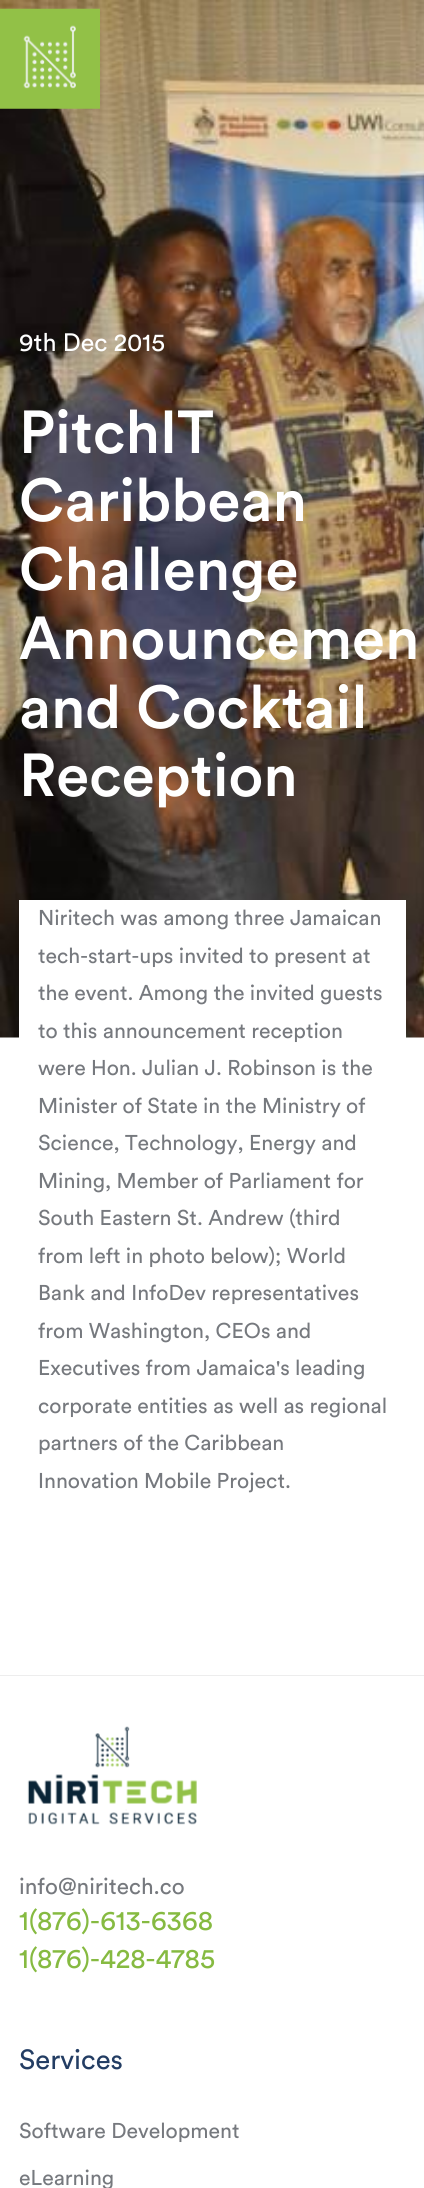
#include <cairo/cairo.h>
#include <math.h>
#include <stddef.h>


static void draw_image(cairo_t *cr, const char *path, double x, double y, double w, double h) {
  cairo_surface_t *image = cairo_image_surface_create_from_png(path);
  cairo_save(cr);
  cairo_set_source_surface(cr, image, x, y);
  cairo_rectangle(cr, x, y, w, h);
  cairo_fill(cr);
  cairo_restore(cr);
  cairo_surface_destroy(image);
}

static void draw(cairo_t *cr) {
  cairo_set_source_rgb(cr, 1, 1, 1);
  cairo_paint(cr);
  draw_image(cr, "images/2.png", 0, 0, 424, 1038);
  draw_image(cr, "images/1.png", 0, 8, 100, 101);
  cairo_set_source_rgb(cr, 1, 1, 1);
  cairo_rectangle(cr, 19, 900, 387, 138);
  cairo_fill(cr);
  cairo_set_source_rgb(cr, 237 / 255.0, 237 / 255.0, 237 / 255.0);
  cairo_rectangle(cr, 0, 1675, 424, 1);
  cairo_fill(cr);
  draw_image(cr, "images/3.png", 27, 1726, 170, 99);
  cairo_select_font_face(cr, "Circular", CAIRO_FONT_SLANT_NORMAL, CAIRO_FONT_WEIGHT_NORMAL);
  cairo_set_font_size(cr, 25);
  cairo_set_source_rgb(cr, 1, 1, 1);
  cairo_move_to(cr, 19, 351);
  cairo_show_text(cr, "9th Dec 2015");
  cairo_select_font_face(cr, "Circular Medium", CAIRO_FONT_SLANT_NORMAL, CAIRO_FONT_WEIGHT_NORMAL);
  cairo_set_font_size(cr, 60);
  cairo_move_to(cr, 19, 453);
  cairo_show_text(cr, "PitchIT");
  cairo_move_to(cr, 19, 521);
  cairo_show_text(cr, "Caribbean");
  cairo_move_to(cr, 19, 590);
  cairo_show_text(cr, "Challenge");
  cairo_move_to(cr, 19, 659);
  cairo_show_text(cr, "Announcemen");
  cairo_move_to(cr, 19, 728);
  cairo_show_text(cr, "and Cocktail");
  cairo_move_to(cr, 19, 796);
  cairo_show_text(cr, "Reception");
  cairo_select_font_face(cr, "Circular", CAIRO_FONT_SLANT_NORMAL, CAIRO_FONT_WEIGHT_NORMAL);
  cairo_set_font_size(cr, 21.25);
  cairo_set_source_rgb(cr, 118 / 255.0, 121 / 255.0, 126 / 255.0);
  cairo_move_to(cr, 38, 925);
  cairo_show_text(cr, "Niritech was among three Jamaican");
  cairo_move_to(cr, 38, 963);
  cairo_show_text(cr, "tech-start-ups invited to present at");
  cairo_move_to(cr, 38, 1000);
  cairo_show_text(cr, "the event. Among the invited guests");
  cairo_move_to(cr, 38, 1038);
  cairo_show_text(cr, "to this announcement reception");
  cairo_move_to(cr, 38, 1075);
  cairo_show_text(cr, "were Hon. Julian J. Robinson is the");
  cairo_move_to(cr, 38, 1113);
  cairo_show_text(cr, "Minister of State in the Ministry of");
  cairo_move_to(cr, 38, 1150);
  cairo_show_text(cr, "Science, Technology, Energy and");
  cairo_move_to(cr, 38, 1188);
  cairo_show_text(cr, "Mining, Member of Parliament for");
  cairo_move_to(cr, 38, 1225);
  cairo_show_text(cr, "South Eastern St. Andrew (third");
  cairo_move_to(cr, 38, 1263);
  cairo_show_text(cr, "from left in photo below); World");
  cairo_move_to(cr, 38, 1300);
  cairo_show_text(cr, "Bank and InfoDev representatives");
  cairo_move_to(cr, 38, 1338);
  cairo_show_text(cr, "from Washington, CEOs and");
  cairo_move_to(cr, 38, 1375);
  cairo_show_text(cr, "Executives from Jamaica's leading");
  cairo_move_to(cr, 38, 1413);
  cairo_show_text(cr, "corporate entities as well as regional");
  cairo_move_to(cr, 38, 1450);
  cairo_show_text(cr, "partners of the Caribbean");
  cairo_move_to(cr, 38, 1488);
  cairo_show_text(cr, "Innovation Mobile Project.");
  cairo_set_font_size(cr, 22.5);
  cairo_move_to(cr, 19, 1894);
  cairo_show_text(cr, "info@niritech.co");
  cairo_set_font_size(cr, 27.5);
  cairo_set_source_rgb(cr, 134 / 255.0, 186 / 255.0, 65 / 255.0);
  cairo_move_to(cr, 19, 1930);
  cairo_show_text(cr, "1(876)-613-6368");
  cairo_move_to(cr, 19, 1968);
  cairo_show_text(cr, "1(876)-428-4785");
  cairo_set_source_rgb(cr, 35 / 255.0, 61 / 255.0, 99 / 255.0);
  cairo_move_to(cr, 19, 2069);
  cairo_show_text(cr, "Services");
  cairo_set_font_size(cr, 21.25);
  cairo_set_source_rgb(cr, 118 / 255.0, 121 / 255.0, 126 / 255.0);
  cairo_move_to(cr, 19, 2138);
  cairo_show_text(cr, "Software Development");
  cairo_move_to(cr, 19, 2185);
  cairo_show_text(cr, "eLearning");
}

int main(void) {
  cairo_surface_t *surface = cairo_image_surface_create(CAIRO_FORMAT_RGB24, 424, 2188);
  cairo_t *cr = cairo_create(surface);
  cairo_font_options_t *options = cairo_font_options_create();
  cairo_font_options_set_hint_metrics(options, CAIRO_HINT_METRICS_OFF);
  cairo_font_options_set_hint_style(options, CAIRO_HINT_STYLE_NONE);
  cairo_set_font_options(cr, options);
  cairo_set_miter_limit(cr, 4);
  draw(cr);
  cairo_surface_write_to_png(surface, "out.png");
  cairo_font_options_destroy(options);
  cairo_destroy(cr);
  cairo_surface_destroy(surface);
  return 0;
}
